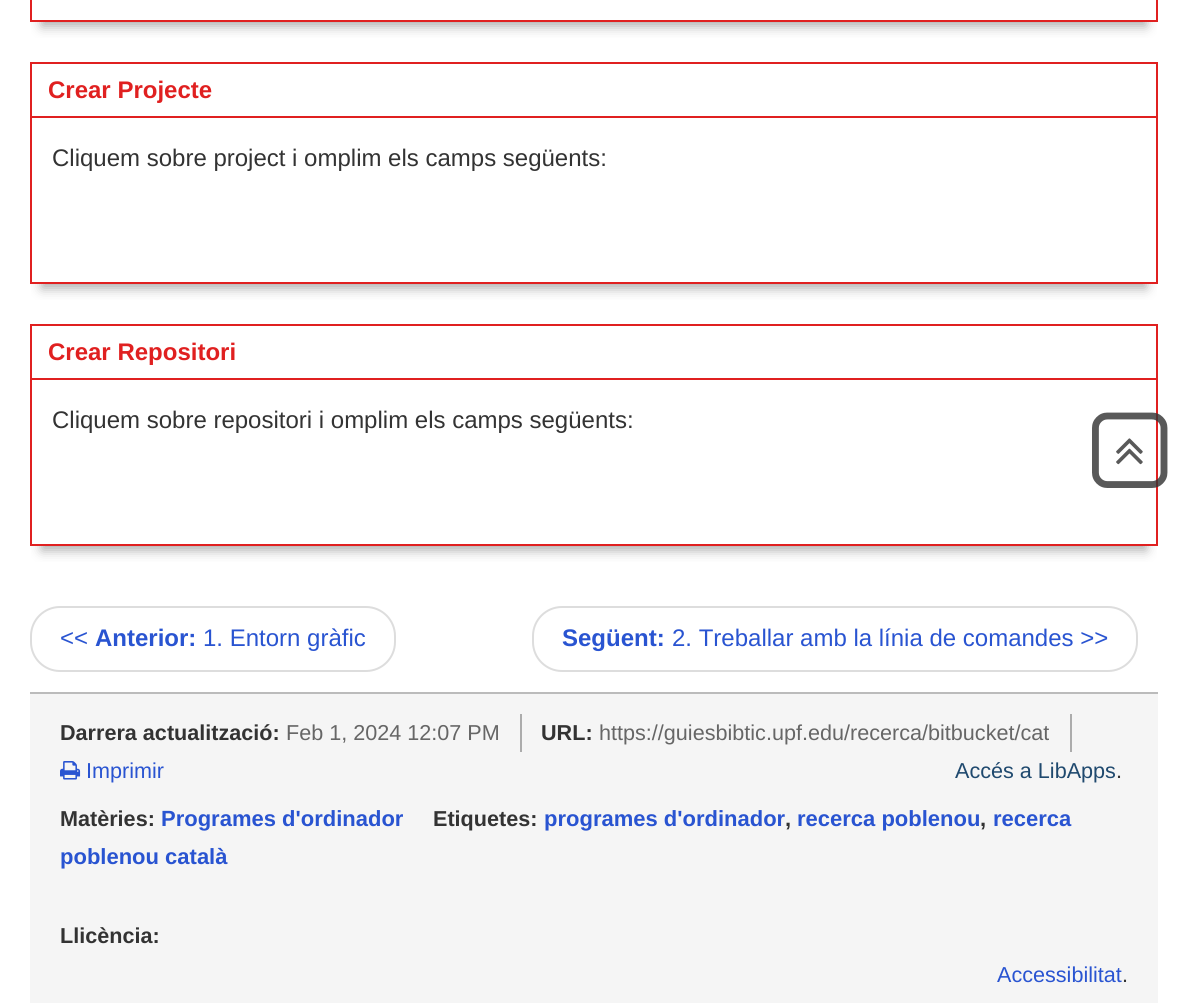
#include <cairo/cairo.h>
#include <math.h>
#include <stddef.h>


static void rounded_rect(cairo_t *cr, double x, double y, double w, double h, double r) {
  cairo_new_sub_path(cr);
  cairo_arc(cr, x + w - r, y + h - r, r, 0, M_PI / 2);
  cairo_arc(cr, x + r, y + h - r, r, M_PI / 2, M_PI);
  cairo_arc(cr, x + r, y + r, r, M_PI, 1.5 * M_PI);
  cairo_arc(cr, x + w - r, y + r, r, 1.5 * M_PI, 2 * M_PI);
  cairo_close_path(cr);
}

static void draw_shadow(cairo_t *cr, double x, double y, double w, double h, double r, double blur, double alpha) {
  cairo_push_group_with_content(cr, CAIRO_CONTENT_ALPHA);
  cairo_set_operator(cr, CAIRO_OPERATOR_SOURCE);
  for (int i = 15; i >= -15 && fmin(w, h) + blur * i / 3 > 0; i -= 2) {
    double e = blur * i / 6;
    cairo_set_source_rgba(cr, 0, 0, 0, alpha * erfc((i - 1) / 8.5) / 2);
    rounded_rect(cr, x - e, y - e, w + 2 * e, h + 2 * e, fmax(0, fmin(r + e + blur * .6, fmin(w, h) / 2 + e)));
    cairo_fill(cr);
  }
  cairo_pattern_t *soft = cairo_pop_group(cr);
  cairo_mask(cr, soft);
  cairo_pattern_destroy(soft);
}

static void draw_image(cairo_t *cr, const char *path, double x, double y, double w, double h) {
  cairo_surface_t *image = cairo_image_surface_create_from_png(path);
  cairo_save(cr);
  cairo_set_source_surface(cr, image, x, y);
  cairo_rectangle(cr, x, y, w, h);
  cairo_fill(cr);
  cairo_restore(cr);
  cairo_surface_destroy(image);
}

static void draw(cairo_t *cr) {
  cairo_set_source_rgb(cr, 1, 1, 1);
  cairo_paint(cr);
  cairo_save(cr);
  cairo_rectangle(cr, 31, 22, 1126, 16);
  cairo_clip(cr);
  cairo_set_source_rgb(cr, 170 / 255.0, 170 / 255.0, 170 / 255.0);
  draw_shadow(cr, 42, -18, 1104, 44, 0, 6, 1);
  cairo_restore(cr);
  cairo_rectangle(cr, 31, -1, 1126, 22);
  cairo_set_source_rgb(cr, 224 / 255.0, 32 / 255.0, 32 / 255.0);
  cairo_stroke(cr);
  cairo_save(cr);
  cairo_rectangle(cr, 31, 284, 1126, 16);
  cairo_clip(cr);
  cairo_set_source_rgb(cr, 170 / 255.0, 170 / 255.0, 170 / 255.0);
  draw_shadow(cr, 42, 90, 1104, 198, 0, 6, 1);
  cairo_restore(cr);
  cairo_rectangle(cr, 31, 63, 1126, 220);
  cairo_stroke(cr);
  cairo_rectangle(cr, 32, 116, 1124, 2);
  cairo_fill(cr);
  cairo_save(cr);
  cairo_rectangle(cr, 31, 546, 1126, 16);
  cairo_clip(cr);
  cairo_set_source_rgb(cr, 170 / 255.0, 170 / 255.0, 170 / 255.0);
  draw_shadow(cr, 42, 352, 1104, 198, 0, 6, 1);
  cairo_restore(cr);
  cairo_rectangle(cr, 31, 325, 1126, 220);
  cairo_stroke(cr);
  cairo_rectangle(cr, 32, 378, 1124, 2);
  cairo_fill(cr);
  rounded_rect(cr, 31, 607, 364, 64, 29);
  cairo_set_source_rgb(cr, 221 / 255.0, 221 / 255.0, 221 / 255.0);
  cairo_stroke(cr);
  rounded_rect(cr, 533, 607, 604, 64, 29);
  cairo_stroke(cr);
  draw_image(cr, "images/1.png", 1092, 412, 76, 76);
  draw_image(cr, "images/2.png", 1116, 438, 27, 27);
  cairo_set_source_rgb(cr, 245 / 255.0, 245 / 255.0, 245 / 255.0);
  cairo_rectangle(cr, 30, 694, 1128, 309);
  cairo_fill(cr);
  cairo_set_source_rgb(cr, 187 / 255.0, 187 / 255.0, 187 / 255.0);
  cairo_rectangle(cr, 30, 692, 1128, 2);
  cairo_fill(cr);
  cairo_set_source_rgb(cr, 172 / 255.0, 172 / 255.0, 172 / 255.0);
  cairo_rectangle(cr, 520, 714, 2, 38);
  cairo_fill(cr);
  cairo_rectangle(cr, 1070, 714, 2, 38);
  cairo_fill(cr);
  draw_image(cr, "images/3.png", 60, 761, 21, 19);
  cairo_select_font_face(cr, "Liberation Sans", CAIRO_FONT_SLANT_NORMAL, CAIRO_FONT_WEIGHT_BOLD);
  cairo_set_font_size(cr, 24);
  cairo_set_source_rgb(cr, 224 / 255.0, 32 / 255.0, 32 / 255.0);
  cairo_move_to(cr, 48, 98);
  cairo_show_text(cr, "Crear Projecte");
  cairo_select_font_face(cr, "Liberation Sans", CAIRO_FONT_SLANT_NORMAL, CAIRO_FONT_WEIGHT_NORMAL);
  cairo_set_source_rgb(cr, 51 / 255.0, 51 / 255.0, 51 / 255.0);
  cairo_move_to(cr, 52, 166);
  cairo_show_text(cr, "Cliquem sobre project i omplim els camps següents:");
  cairo_select_font_face(cr, "Liberation Sans", CAIRO_FONT_SLANT_NORMAL, CAIRO_FONT_WEIGHT_BOLD);
  cairo_set_source_rgb(cr, 224 / 255.0, 32 / 255.0, 32 / 255.0);
  cairo_move_to(cr, 48, 360);
  cairo_show_text(cr, "Crear Repositori");
  cairo_select_font_face(cr, "Liberation Sans", CAIRO_FONT_SLANT_NORMAL, CAIRO_FONT_WEIGHT_NORMAL);
  cairo_set_source_rgb(cr, 51 / 255.0, 51 / 255.0, 51 / 255.0);
  cairo_move_to(cr, 52, 428);
  cairo_show_text(cr, "Cliquem sobre repositori i omplim els camps següents:");
  cairo_set_source_rgb(cr, 41 / 255.0, 84 / 255.0, 209 / 255.0);
  cairo_move_to(cr, 60, 646);
  cairo_show_text(cr, "<<");
  cairo_select_font_face(cr, "Liberation Sans", CAIRO_FONT_SLANT_NORMAL, CAIRO_FONT_WEIGHT_BOLD);
  cairo_move_to(cr, 95, 646);
  cairo_show_text(cr, "Anterior:");
  cairo_select_font_face(cr, "Liberation Sans", CAIRO_FONT_SLANT_NORMAL, CAIRO_FONT_WEIGHT_NORMAL);
  cairo_move_to(cr, 203, 646);
  cairo_show_text(cr, "1. Entorn gràfic");
  cairo_select_font_face(cr, "Liberation Sans", CAIRO_FONT_SLANT_NORMAL, CAIRO_FONT_WEIGHT_BOLD);
  cairo_move_to(cr, 562, 646);
  cairo_show_text(cr, "Següent:");
  cairo_select_font_face(cr, "Liberation Sans", CAIRO_FONT_SLANT_NORMAL, CAIRO_FONT_WEIGHT_NORMAL);
  cairo_move_to(cr, 672, 646);
  cairo_show_text(cr, "2. Treballar amb la línia de comandes >>");
  cairo_select_font_face(cr, "Liberation Sans", CAIRO_FONT_SLANT_NORMAL, CAIRO_FONT_WEIGHT_BOLD);
  cairo_set_font_size(cr, 21.6);
  cairo_set_source_rgb(cr, 51 / 255.0, 51 / 255.0, 51 / 255.0);
  cairo_move_to(cr, 60, 740);
  cairo_show_text(cr, "Darrera actualització:");
  cairo_select_font_face(cr, "Liberation Sans", CAIRO_FONT_SLANT_NORMAL, CAIRO_FONT_WEIGHT_NORMAL);
  cairo_set_source_rgb(cr, 102 / 255.0, 102 / 255.0, 102 / 255.0);
  cairo_move_to(cr, 286, 740);
  cairo_show_text(cr, "Feb 1, 2024 12:07 PM");
  cairo_select_font_face(cr, "Liberation Sans", CAIRO_FONT_SLANT_NORMAL, CAIRO_FONT_WEIGHT_BOLD);
  cairo_set_source_rgb(cr, 51 / 255.0, 51 / 255.0, 51 / 255.0);
  cairo_move_to(cr, 541, 740);
  cairo_show_text(cr, "URL:");
  cairo_select_font_face(cr, "Liberation Sans", CAIRO_FONT_SLANT_NORMAL, CAIRO_FONT_WEIGHT_NORMAL);
  cairo_set_source_rgb(cr, 102 / 255.0, 102 / 255.0, 102 / 255.0);
  cairo_move_to(cr, 599, 740);
  cairo_show_text(cr, "https://guiesbibtic.upf.edu/recerca/bitbucket/cat");
  cairo_set_source_rgb(cr, 41 / 255.0, 84 / 255.0, 209 / 255.0);
  cairo_move_to(cr, 86, 778);
  cairo_show_text(cr, "Imprimir");
  cairo_set_source_rgb(cr, 31 / 255.0, 73 / 255.0, 110 / 255.0);
  cairo_move_to(cr, 955, 778);
  cairo_show_text(cr, "Accés a LibApps");
  cairo_set_source_rgb(cr, 51 / 255.0, 51 / 255.0, 51 / 255.0);
  cairo_move_to(cr, 1116, 778);
  cairo_show_text(cr, ".");
  cairo_select_font_face(cr, "Liberation Sans", CAIRO_FONT_SLANT_NORMAL, CAIRO_FONT_WEIGHT_BOLD);
  cairo_move_to(cr, 60, 826);
  cairo_show_text(cr, "Matèries:");
  cairo_set_font_size(cr, 22);
  cairo_set_source_rgb(cr, 41 / 255.0, 84 / 255.0, 209 / 255.0);
  cairo_move_to(cr, 161, 826);
  cairo_show_text(cr, "Programes d'ordinador");
  cairo_set_font_size(cr, 21.6);
  cairo_set_source_rgb(cr, 51 / 255.0, 51 / 255.0, 51 / 255.0);
  cairo_move_to(cr, 433, 826);
  cairo_show_text(cr, "Etiquetes:");
  cairo_set_font_size(cr, 22);
  cairo_set_source_rgb(cr, 41 / 255.0, 84 / 255.0, 209 / 255.0);
  cairo_move_to(cr, 544, 826);
  cairo_show_text(cr, "programes d'ordinador");
  cairo_set_source_rgb(cr, 51 / 255.0, 51 / 255.0, 51 / 255.0);
  cairo_move_to(cr, 785, 826);
  cairo_show_text(cr, ",");
  cairo_set_source_rgb(cr, 41 / 255.0, 84 / 255.0, 209 / 255.0);
  cairo_move_to(cr, 797, 826);
  cairo_show_text(cr, "recerca poblenou");
  cairo_set_source_rgb(cr, 51 / 255.0, 51 / 255.0, 51 / 255.0);
  cairo_move_to(cr, 980, 826);
  cairo_show_text(cr, ",");
  cairo_set_source_rgb(cr, 41 / 255.0, 84 / 255.0, 209 / 255.0);
  cairo_move_to(cr, 993, 826);
  cairo_show_text(cr, "recerca");
  cairo_move_to(cr, 60, 864);
  cairo_show_text(cr, "poblenou català");
  cairo_set_font_size(cr, 21.6);
  cairo_set_source_rgb(cr, 51 / 255.0, 51 / 255.0, 51 / 255.0);
  cairo_move_to(cr, 60, 943);
  cairo_show_text(cr, "Llicència:");
  cairo_select_font_face(cr, "Liberation Sans", CAIRO_FONT_SLANT_NORMAL, CAIRO_FONT_WEIGHT_NORMAL);
  cairo_set_source_rgb(cr, 41 / 255.0, 84 / 255.0, 209 / 255.0);
  cairo_move_to(cr, 997, 982);
  cairo_show_text(cr, "Accessibilitat");
  cairo_set_source_rgb(cr, 51 / 255.0, 51 / 255.0, 51 / 255.0);
  cairo_move_to(cr, 1122, 982);
  cairo_show_text(cr, ".");
}

int main(void) {
  cairo_surface_t *surface = cairo_image_surface_create(CAIRO_FORMAT_RGB24, 1188, 1003);
  cairo_t *cr = cairo_create(surface);
  cairo_font_options_t *options = cairo_font_options_create();
  cairo_font_options_set_hint_metrics(options, CAIRO_HINT_METRICS_OFF);
  cairo_font_options_set_hint_style(options, CAIRO_HINT_STYLE_NONE);
  cairo_set_font_options(cr, options);
  cairo_set_miter_limit(cr, 4);
  draw(cr);
  cairo_surface_write_to_png(surface, "out.png");
  cairo_font_options_destroy(options);
  cairo_destroy(cr);
  cairo_surface_destroy(surface);
  return 0;
}
